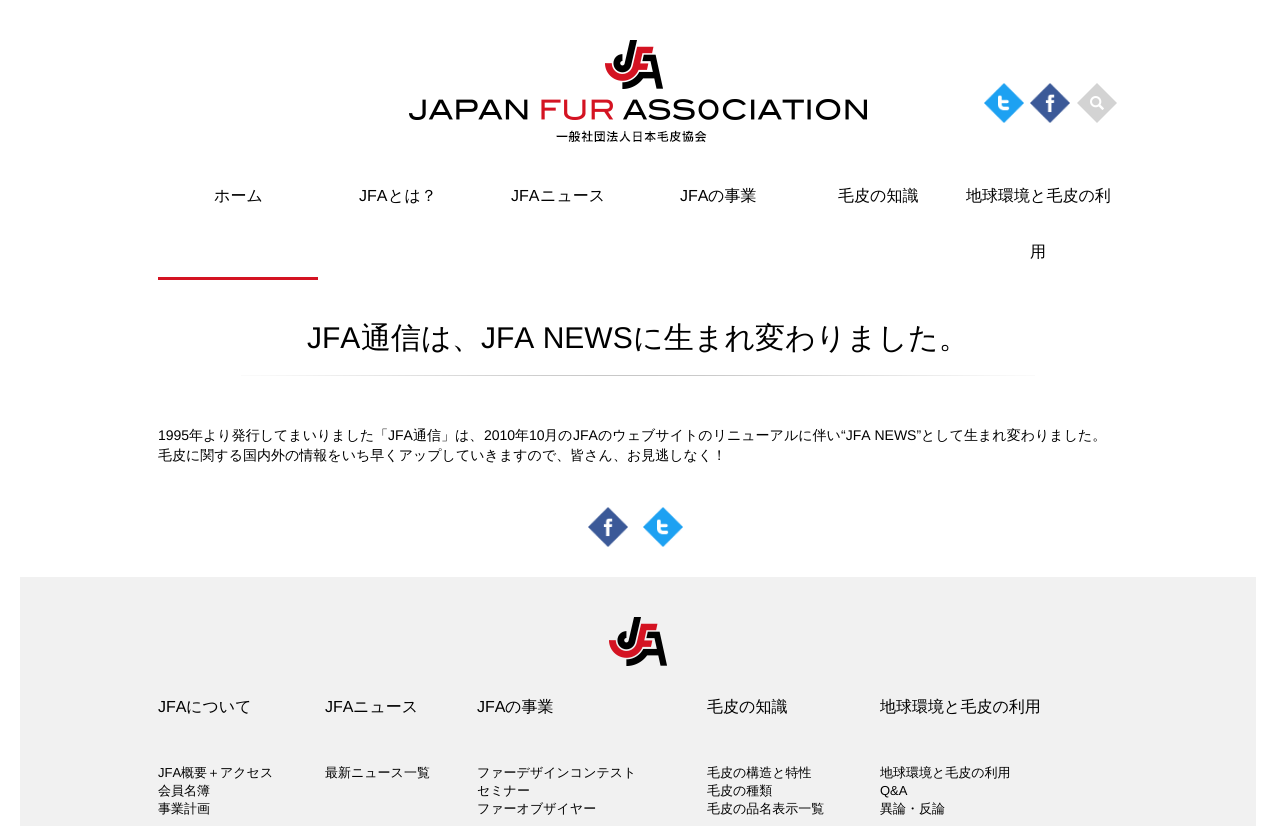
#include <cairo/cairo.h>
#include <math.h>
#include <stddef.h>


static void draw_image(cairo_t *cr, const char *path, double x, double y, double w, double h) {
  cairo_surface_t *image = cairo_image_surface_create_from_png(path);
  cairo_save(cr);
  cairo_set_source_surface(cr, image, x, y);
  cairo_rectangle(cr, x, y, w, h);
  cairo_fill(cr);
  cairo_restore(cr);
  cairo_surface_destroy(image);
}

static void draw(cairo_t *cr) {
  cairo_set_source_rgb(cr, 1, 1, 1);
  cairo_paint(cr);
  draw_image(cr, "images/1.png", 409, 40, 458, 103);
  draw_image(cr, "images/2.png", 984, 83, 40, 40);
  draw_image(cr, "images/3.png", 1030, 83, 40, 40);
  draw_image(cr, "images/4.png", 1077, 83, 40, 40);
  cairo_set_source_rgb(cr, 212 / 255.0, 19 / 255.0, 34 / 255.0);
  cairo_rectangle(cr, 158, 277, 160, 3);
  cairo_fill(cr);
  draw_image(cr, "images/5.png", 241, 375, 794, 1);
  draw_image(cr, "images/3.png", 588, 507, 40, 40);
  draw_image(cr, "images/6.png", 643, 507, 40, 40);
  cairo_set_source_rgb(cr, 241 / 255.0, 241 / 255.0, 241 / 255.0);
  cairo_rectangle(cr, 20, 577, 1236, 249);
  cairo_fill(cr);
  draw_image(cr, "images/7.png", 609, 617, 58, 49);
  cairo_select_font_face(cr, "WenQuanYi Zen Hei Medium", CAIRO_FONT_SLANT_NORMAL, CAIRO_FONT_WEIGHT_NORMAL);
  cairo_set_font_size(cr, 16);
  cairo_set_source_rgb(cr, 0, 0, 0);
  cairo_move_to(cr, 214, 201);
  cairo_show_text(cr, "ホーム");
  cairo_select_font_face(cr, "Liberation Sans", CAIRO_FONT_SLANT_NORMAL, CAIRO_FONT_WEIGHT_NORMAL);
  cairo_move_to(cr, 359, 201);
  cairo_show_text(cr, "JFA");
  cairo_select_font_face(cr, "WenQuanYi Zen Hei Medium", CAIRO_FONT_SLANT_NORMAL, CAIRO_FONT_WEIGHT_NORMAL);
  cairo_move_to(cr, 388, 201);
  cairo_show_text(cr, "とは？");
  cairo_select_font_face(cr, "Liberation Sans", CAIRO_FONT_SLANT_NORMAL, CAIRO_FONT_WEIGHT_NORMAL);
  cairo_move_to(cr, 511, 201);
  cairo_show_text(cr, "JFA");
  cairo_select_font_face(cr, "WenQuanYi Zen Hei Medium", CAIRO_FONT_SLANT_NORMAL, CAIRO_FONT_WEIGHT_NORMAL);
  cairo_move_to(cr, 540, 201);
  cairo_show_text(cr, "ニュース");
  cairo_select_font_face(cr, "Liberation Sans", CAIRO_FONT_SLANT_NORMAL, CAIRO_FONT_WEIGHT_NORMAL);
  cairo_move_to(cr, 680, 201);
  cairo_show_text(cr, "JFA");
  cairo_select_font_face(cr, "WenQuanYi Zen Hei Medium", CAIRO_FONT_SLANT_NORMAL, CAIRO_FONT_WEIGHT_NORMAL);
  cairo_move_to(cr, 708, 201);
  cairo_show_text(cr, "の事業");
  cairo_move_to(cr, 838, 201);
  cairo_show_text(cr, "毛皮の知識");
  cairo_move_to(cr, 966, 201);
  cairo_show_text(cr, "地球環境と毛皮の利");
  cairo_move_to(cr, 1030, 257);
  cairo_show_text(cr, "用");
  cairo_select_font_face(cr, "Liberation Sans", CAIRO_FONT_SLANT_NORMAL, CAIRO_FONT_WEIGHT_NORMAL);
  cairo_set_font_size(cr, 30);
  cairo_move_to(cr, 307, 348);
  cairo_show_text(cr, "JFA");
  cairo_select_font_face(cr, "WenQuanYi Zen Hei Medium", CAIRO_FONT_SLANT_NORMAL, CAIRO_FONT_WEIGHT_NORMAL);
  cairo_move_to(cr, 361, 348);
  cairo_show_text(cr, "通信は、");
  cairo_select_font_face(cr, "Liberation Sans", CAIRO_FONT_SLANT_NORMAL, CAIRO_FONT_WEIGHT_NORMAL);
  cairo_move_to(cr, 481, 348);
  cairo_show_text(cr, "JFA NEWS");
  cairo_select_font_face(cr, "WenQuanYi Zen Hei Medium", CAIRO_FONT_SLANT_NORMAL, CAIRO_FONT_WEIGHT_NORMAL);
  cairo_move_to(cr, 633, 348);
  cairo_show_text(cr, "に生まれ変わりました。");
  cairo_select_font_face(cr, "Liberation Sans", CAIRO_FONT_SLANT_NORMAL, CAIRO_FONT_WEIGHT_NORMAL);
  cairo_set_font_size(cr, 14);
  cairo_move_to(cr, 158, 440);
  cairo_show_text(cr, "1995");
  cairo_select_font_face(cr, "WenQuanYi Zen Hei Medium", CAIRO_FONT_SLANT_NORMAL, CAIRO_FONT_WEIGHT_NORMAL);
  cairo_move_to(cr, 189, 440);
  cairo_show_text(cr, "年より発行してまいりました「");
  cairo_select_font_face(cr, "Liberation Sans", CAIRO_FONT_SLANT_NORMAL, CAIRO_FONT_WEIGHT_NORMAL);
  cairo_move_to(cr, 388, 440);
  cairo_show_text(cr, "JFA");
  cairo_select_font_face(cr, "WenQuanYi Zen Hei Medium", CAIRO_FONT_SLANT_NORMAL, CAIRO_FONT_WEIGHT_NORMAL);
  cairo_move_to(cr, 413, 440);
  cairo_show_text(cr, "通信」は、");
  cairo_select_font_face(cr, "Liberation Sans", CAIRO_FONT_SLANT_NORMAL, CAIRO_FONT_WEIGHT_NORMAL);
  cairo_move_to(cr, 484, 440);
  cairo_show_text(cr, "2010");
  cairo_select_font_face(cr, "WenQuanYi Zen Hei Medium", CAIRO_FONT_SLANT_NORMAL, CAIRO_FONT_WEIGHT_NORMAL);
  cairo_move_to(cr, 515, 440);
  cairo_show_text(cr, "年");
  cairo_select_font_face(cr, "Liberation Sans", CAIRO_FONT_SLANT_NORMAL, CAIRO_FONT_WEIGHT_NORMAL);
  cairo_move_to(cr, 529, 440);
  cairo_show_text(cr, "10");
  cairo_select_font_face(cr, "WenQuanYi Zen Hei Medium", CAIRO_FONT_SLANT_NORMAL, CAIRO_FONT_WEIGHT_NORMAL);
  cairo_move_to(cr, 544, 440);
  cairo_show_text(cr, "月の");
  cairo_select_font_face(cr, "Liberation Sans", CAIRO_FONT_SLANT_NORMAL, CAIRO_FONT_WEIGHT_NORMAL);
  cairo_move_to(cr, 573, 440);
  cairo_show_text(cr, "JFA");
  cairo_select_font_face(cr, "WenQuanYi Zen Hei Medium", CAIRO_FONT_SLANT_NORMAL, CAIRO_FONT_WEIGHT_NORMAL);
  cairo_move_to(cr, 598, 440);
  cairo_show_text(cr, "のウェブサイトのリニューアルに伴い");
  cairo_select_font_face(cr, "Liberation Sans", CAIRO_FONT_SLANT_NORMAL, CAIRO_FONT_WEIGHT_NORMAL);
  cairo_move_to(cr, 841, 440);
  cairo_show_text(cr, "“JFA NEWS”");
  cairo_select_font_face(cr, "WenQuanYi Zen Hei Medium", CAIRO_FONT_SLANT_NORMAL, CAIRO_FONT_WEIGHT_NORMAL);
  cairo_move_to(cr, 921, 440);
  cairo_show_text(cr, "として生まれ変わりました。");
  cairo_move_to(cr, 158, 460);
  cairo_show_text(cr, "毛皮に関する国内外の情報をいち早くアップしていきますので、皆さん、お見逃しなく！");
  cairo_select_font_face(cr, "Liberation Sans", CAIRO_FONT_SLANT_NORMAL, CAIRO_FONT_WEIGHT_NORMAL);
  cairo_set_font_size(cr, 16);
  cairo_move_to(cr, 158, 712);
  cairo_show_text(cr, "JFA");
  cairo_select_font_face(cr, "WenQuanYi Zen Hei Medium", CAIRO_FONT_SLANT_NORMAL, CAIRO_FONT_WEIGHT_NORMAL);
  cairo_move_to(cr, 186, 712);
  cairo_show_text(cr, "について");
  cairo_select_font_face(cr, "Liberation Sans", CAIRO_FONT_SLANT_NORMAL, CAIRO_FONT_WEIGHT_NORMAL);
  cairo_set_font_size(cr, 13);
  cairo_move_to(cr, 158, 777);
  cairo_show_text(cr, "JFA");
  cairo_select_font_face(cr, "WenQuanYi Zen Hei Medium", CAIRO_FONT_SLANT_NORMAL, CAIRO_FONT_WEIGHT_NORMAL);
  cairo_move_to(cr, 181, 777);
  cairo_show_text(cr, "概要＋アクセス");
  cairo_move_to(cr, 158, 795);
  cairo_show_text(cr, "会員名簿");
  cairo_move_to(cr, 158, 813);
  cairo_show_text(cr, "事業計画");
  cairo_select_font_face(cr, "Liberation Sans", CAIRO_FONT_SLANT_NORMAL, CAIRO_FONT_WEIGHT_NORMAL);
  cairo_set_font_size(cr, 16);
  cairo_move_to(cr, 325, 712);
  cairo_show_text(cr, "JFA");
  cairo_select_font_face(cr, "WenQuanYi Zen Hei Medium", CAIRO_FONT_SLANT_NORMAL, CAIRO_FONT_WEIGHT_NORMAL);
  cairo_move_to(cr, 353, 712);
  cairo_show_text(cr, "ニュース");
  cairo_set_font_size(cr, 13);
  cairo_move_to(cr, 325, 777);
  cairo_show_text(cr, "最新ニュース一覧");
  cairo_select_font_face(cr, "Liberation Sans", CAIRO_FONT_SLANT_NORMAL, CAIRO_FONT_WEIGHT_NORMAL);
  cairo_set_font_size(cr, 16);
  cairo_move_to(cr, 477, 712);
  cairo_show_text(cr, "JFA");
  cairo_select_font_face(cr, "WenQuanYi Zen Hei Medium", CAIRO_FONT_SLANT_NORMAL, CAIRO_FONT_WEIGHT_NORMAL);
  cairo_move_to(cr, 505, 712);
  cairo_show_text(cr, "の事業");
  cairo_set_font_size(cr, 13);
  cairo_move_to(cr, 477, 777);
  cairo_show_text(cr, "ファーデザインコンテスト");
  cairo_move_to(cr, 477, 795);
  cairo_show_text(cr, "セミナー");
  cairo_move_to(cr, 477, 813);
  cairo_show_text(cr, "ファーオブザイヤー");
  cairo_set_font_size(cr, 16);
  cairo_move_to(cr, 707, 712);
  cairo_show_text(cr, "毛皮の知識");
  cairo_set_font_size(cr, 13);
  cairo_move_to(cr, 707, 777);
  cairo_show_text(cr, "毛皮の構造と特性");
  cairo_move_to(cr, 707, 795);
  cairo_show_text(cr, "毛皮の種類");
  cairo_move_to(cr, 707, 813);
  cairo_show_text(cr, "毛皮の品名表示一覧");
  cairo_set_font_size(cr, 16);
  cairo_move_to(cr, 880, 712);
  cairo_show_text(cr, "地球環境と毛皮の利用");
  cairo_set_font_size(cr, 13);
  cairo_move_to(cr, 880, 777);
  cairo_show_text(cr, "地球環境と毛皮の利用");
  cairo_select_font_face(cr, "Liberation Sans", CAIRO_FONT_SLANT_NORMAL, CAIRO_FONT_WEIGHT_NORMAL);
  cairo_move_to(cr, 880, 795);
  cairo_show_text(cr, "Q&A");
  cairo_select_font_face(cr, "WenQuanYi Zen Hei Medium", CAIRO_FONT_SLANT_NORMAL, CAIRO_FONT_WEIGHT_NORMAL);
  cairo_move_to(cr, 880, 813);
  cairo_show_text(cr, "異論・反論");
}

int main(void) {
  cairo_surface_t *surface = cairo_image_surface_create(CAIRO_FORMAT_RGB24, 1276, 826);
  cairo_t *cr = cairo_create(surface);
  cairo_font_options_t *options = cairo_font_options_create();
  cairo_font_options_set_hint_metrics(options, CAIRO_HINT_METRICS_OFF);
  cairo_font_options_set_hint_style(options, CAIRO_HINT_STYLE_NONE);
  cairo_set_font_options(cr, options);
  cairo_set_miter_limit(cr, 4);
  draw(cr);
  cairo_surface_write_to_png(surface, "out.png");
  cairo_font_options_destroy(options);
  cairo_destroy(cr);
  cairo_surface_destroy(surface);
  return 0;
}
